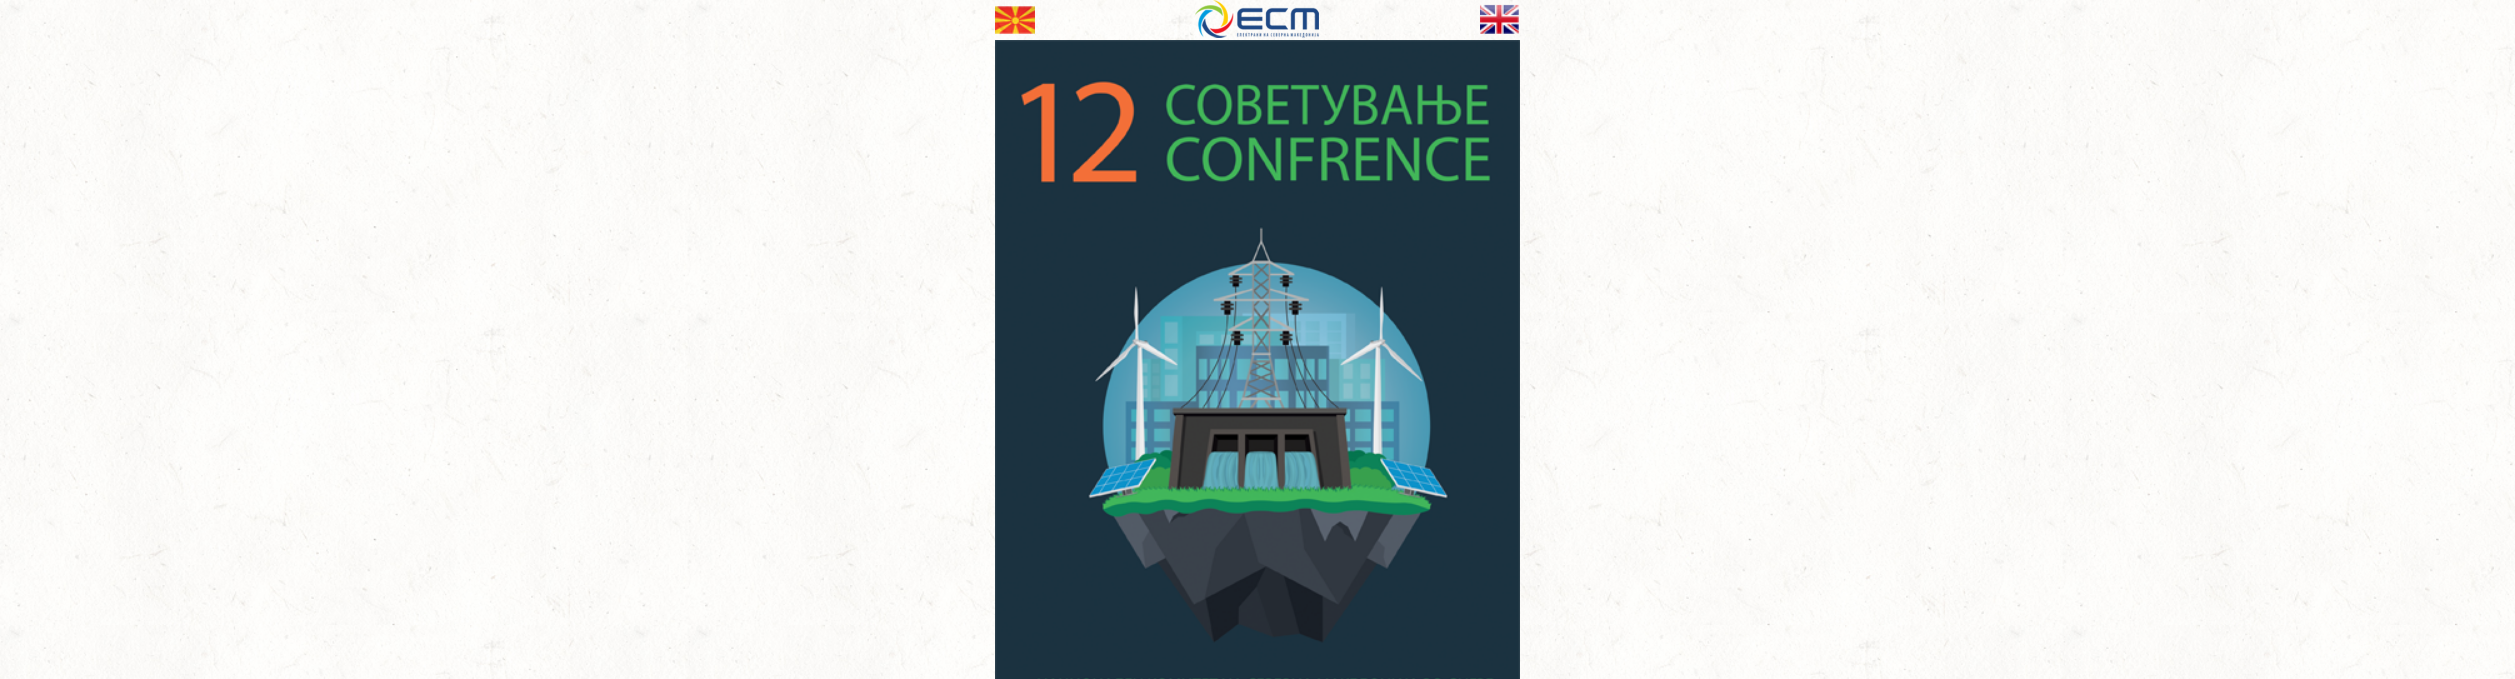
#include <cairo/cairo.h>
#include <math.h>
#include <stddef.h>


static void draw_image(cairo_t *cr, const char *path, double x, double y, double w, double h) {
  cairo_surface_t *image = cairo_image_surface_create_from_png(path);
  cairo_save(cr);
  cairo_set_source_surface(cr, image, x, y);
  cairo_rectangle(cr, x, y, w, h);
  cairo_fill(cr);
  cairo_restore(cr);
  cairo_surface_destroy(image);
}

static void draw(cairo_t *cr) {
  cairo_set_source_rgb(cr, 1, 1, 1);
  cairo_paint(cr);
  draw_image(cr, "images/1.png", 0, 0, 2515, 679);
  draw_image(cr, "images/2.png", 995, 6, 40, 28);
  draw_image(cr, "images/3.png", 1195, 0, 124, 38);
  draw_image(cr, "images/4.png", 1480, 4, 39, 30);
  draw_image(cr, "images/5.png", 995, 40, 525, 639);
}

int main(void) {
  cairo_surface_t *surface = cairo_image_surface_create(CAIRO_FORMAT_RGB24, 2515, 679);
  cairo_t *cr = cairo_create(surface);
  cairo_font_options_t *options = cairo_font_options_create();
  cairo_font_options_set_hint_metrics(options, CAIRO_HINT_METRICS_OFF);
  cairo_font_options_set_hint_style(options, CAIRO_HINT_STYLE_NONE);
  cairo_set_font_options(cr, options);
  cairo_set_miter_limit(cr, 4);
  draw(cr);
  cairo_surface_write_to_png(surface, "out.png");
  cairo_font_options_destroy(options);
  cairo_destroy(cr);
  cairo_surface_destroy(surface);
  return 0;
}
